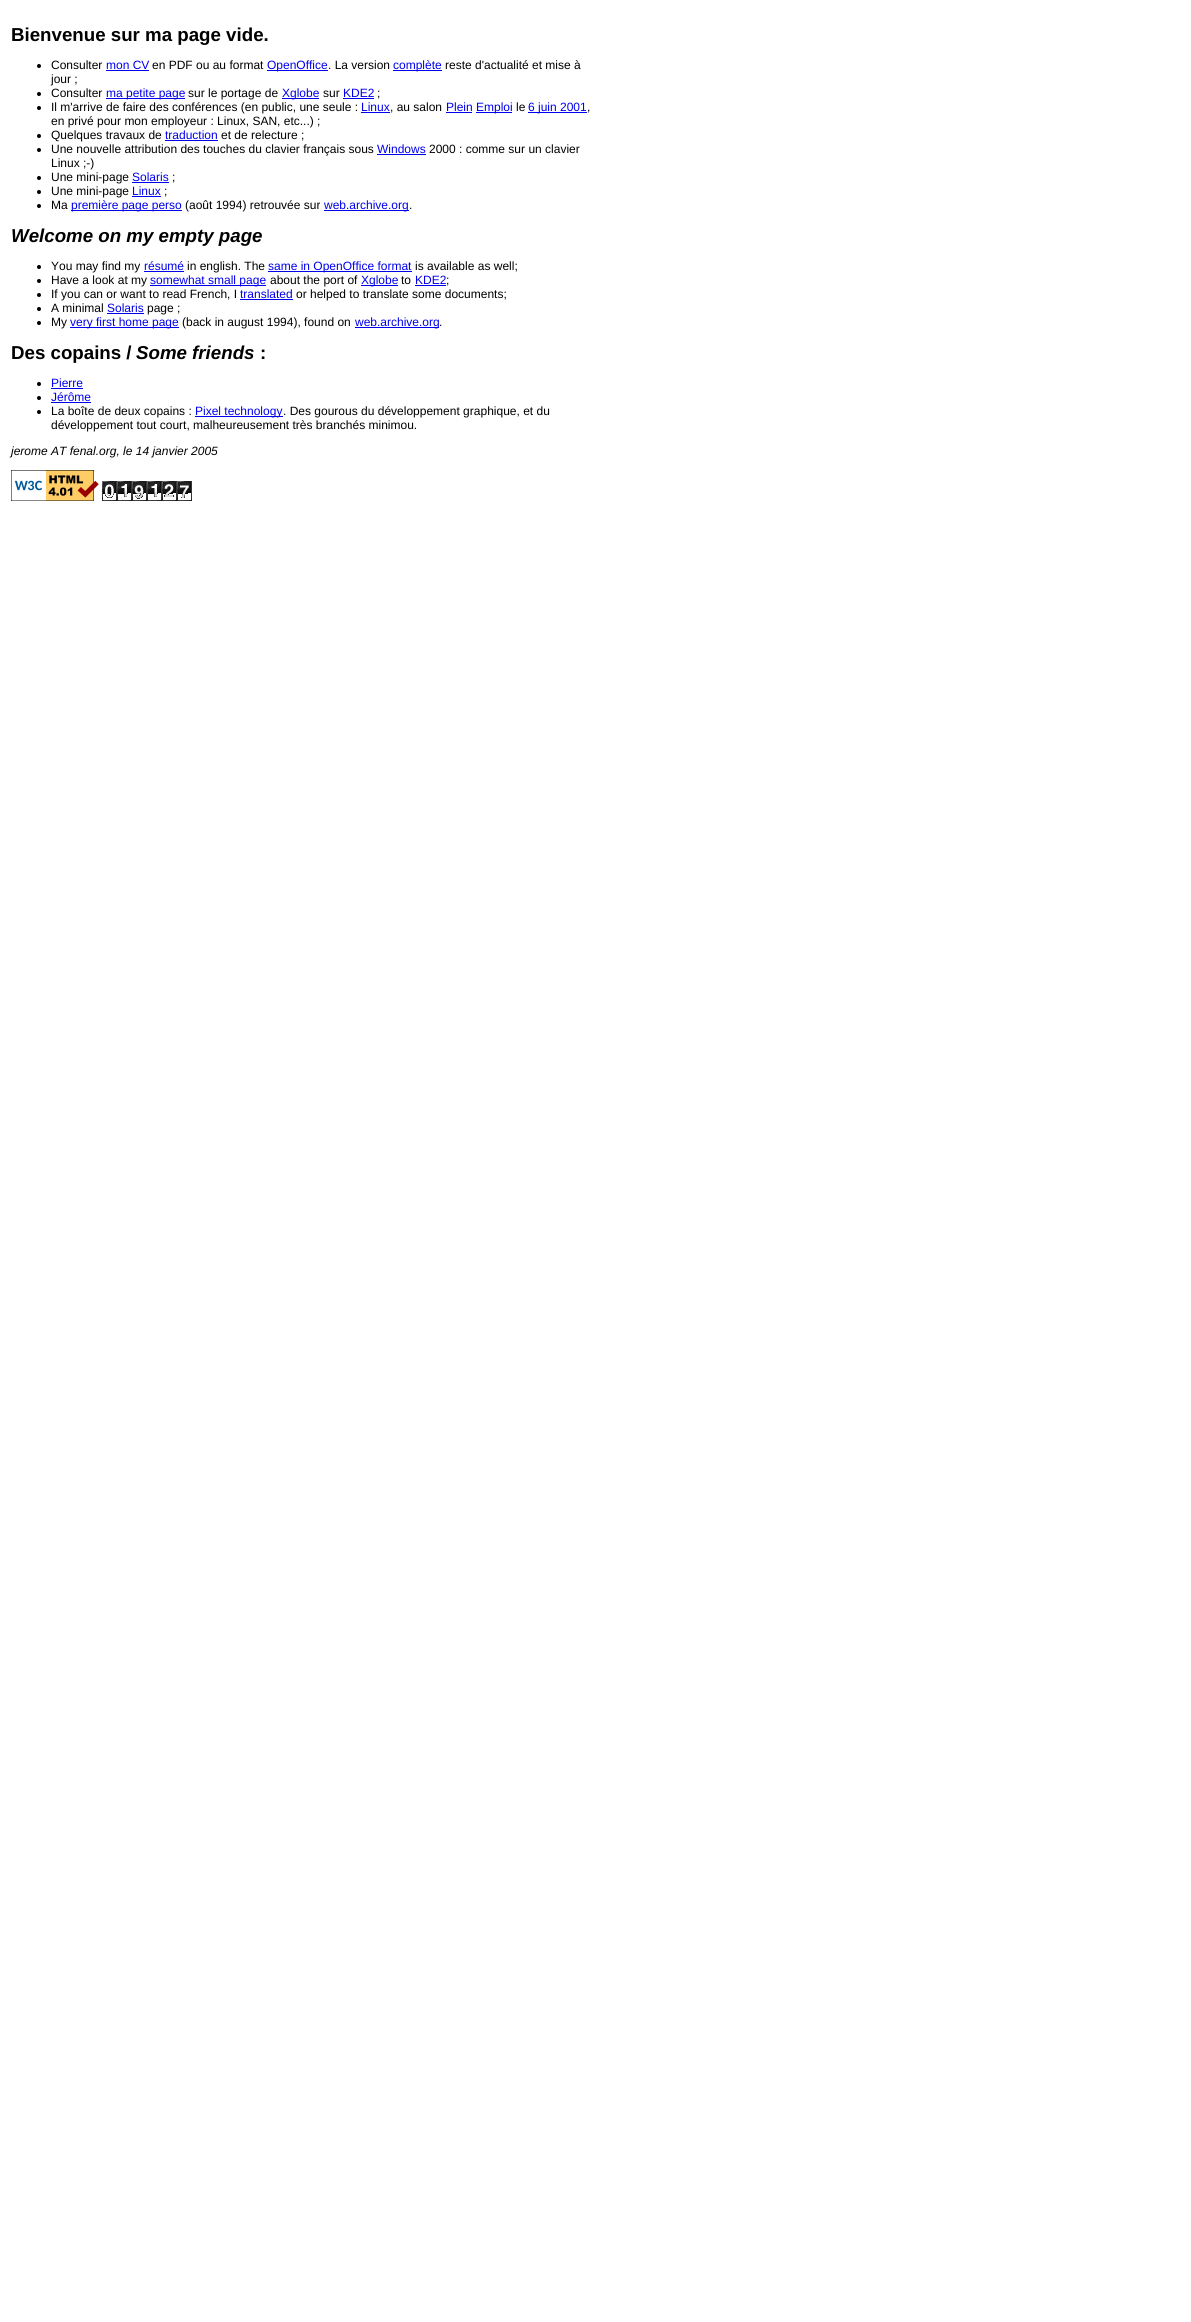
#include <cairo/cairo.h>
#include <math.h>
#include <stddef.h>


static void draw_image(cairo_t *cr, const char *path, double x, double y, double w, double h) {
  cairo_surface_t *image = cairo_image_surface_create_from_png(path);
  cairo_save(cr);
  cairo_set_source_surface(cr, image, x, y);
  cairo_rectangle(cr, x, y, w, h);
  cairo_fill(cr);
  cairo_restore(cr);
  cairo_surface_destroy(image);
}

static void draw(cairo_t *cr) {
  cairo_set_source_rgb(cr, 1, 1, 1);
  cairo_paint(cr);
  cairo_set_source_rgb(cr, 0, 0, 0);
  cairo_arc(cr, 39, 66, 2, 0, 2 * M_PI);
  cairo_fill(cr);
  cairo_set_source_rgb(cr, 0, 0, 238 / 255.0);
  cairo_rectangle(cr, 106, 70, 43, 1);
  cairo_fill(cr);
  cairo_rectangle(cr, 267, 70, 61, 1);
  cairo_fill(cr);
  cairo_rectangle(cr, 393, 70, 49, 1);
  cairo_fill(cr);
  cairo_set_source_rgb(cr, 0, 0, 0);
  cairo_arc(cr, 39, 94, 2, 0, 2 * M_PI);
  cairo_fill(cr);
  cairo_set_source_rgb(cr, 0, 0, 238 / 255.0);
  cairo_rectangle(cr, 106, 98, 79, 1);
  cairo_fill(cr);
  cairo_rectangle(cr, 282, 98, 37, 1);
  cairo_fill(cr);
  cairo_rectangle(cr, 343, 98, 31, 1);
  cairo_fill(cr);
  cairo_set_source_rgb(cr, 0, 0, 0);
  cairo_arc(cr, 39, 108, 2, 0, 2 * M_PI);
  cairo_fill(cr);
  cairo_set_source_rgb(cr, 0, 0, 238 / 255.0);
  cairo_rectangle(cr, 361, 112, 29, 1);
  cairo_fill(cr);
  cairo_rectangle(cr, 446, 112, 26, 1);
  cairo_fill(cr);
  cairo_rectangle(cr, 476, 112, 36, 1);
  cairo_fill(cr);
  cairo_rectangle(cr, 528, 112, 59, 1);
  cairo_fill(cr);
  cairo_set_source_rgb(cr, 0, 0, 0);
  cairo_arc(cr, 39, 136, 2, 0, 2 * M_PI);
  cairo_fill(cr);
  cairo_set_source_rgb(cr, 0, 0, 238 / 255.0);
  cairo_rectangle(cr, 165, 140, 53, 1);
  cairo_fill(cr);
  cairo_set_source_rgb(cr, 0, 0, 0);
  cairo_arc(cr, 39, 150, 2, 0, 2 * M_PI);
  cairo_fill(cr);
  cairo_set_source_rgb(cr, 0, 0, 238 / 255.0);
  cairo_rectangle(cr, 377, 154, 49, 1);
  cairo_fill(cr);
  cairo_set_source_rgb(cr, 0, 0, 0);
  cairo_arc(cr, 39, 178, 2, 0, 2 * M_PI);
  cairo_fill(cr);
  cairo_set_source_rgb(cr, 0, 0, 238 / 255.0);
  cairo_rectangle(cr, 132, 182, 37, 1);
  cairo_fill(cr);
  cairo_set_source_rgb(cr, 0, 0, 0);
  cairo_arc(cr, 39, 192, 2, 0, 2 * M_PI);
  cairo_fill(cr);
  cairo_set_source_rgb(cr, 0, 0, 238 / 255.0);
  cairo_rectangle(cr, 132, 196, 29, 1);
  cairo_fill(cr);
  cairo_set_source_rgb(cr, 0, 0, 0);
  cairo_arc(cr, 39, 206, 2, 0, 2 * M_PI);
  cairo_fill(cr);
  cairo_set_source_rgb(cr, 0, 0, 238 / 255.0);
  cairo_rectangle(cr, 71, 210, 111, 1);
  cairo_fill(cr);
  cairo_rectangle(cr, 324, 210, 85, 1);
  cairo_fill(cr);
  cairo_set_source_rgb(cr, 0, 0, 0);
  cairo_arc(cr, 39, 267, 2, 0, 2 * M_PI);
  cairo_fill(cr);
  cairo_set_source_rgb(cr, 0, 0, 238 / 255.0);
  cairo_rectangle(cr, 144, 271, 40, 1);
  cairo_fill(cr);
  cairo_rectangle(cr, 268, 271, 144, 1);
  cairo_fill(cr);
  cairo_set_source_rgb(cr, 0, 0, 0);
  cairo_arc(cr, 39, 281, 2, 0, 2 * M_PI);
  cairo_fill(cr);
  cairo_set_source_rgb(cr, 0, 0, 238 / 255.0);
  cairo_rectangle(cr, 150, 285, 116, 1);
  cairo_fill(cr);
  cairo_rectangle(cr, 361, 285, 37, 1);
  cairo_fill(cr);
  cairo_rectangle(cr, 415, 285, 31, 1);
  cairo_fill(cr);
  cairo_set_source_rgb(cr, 0, 0, 0);
  cairo_arc(cr, 39, 295, 2, 0, 2 * M_PI);
  cairo_fill(cr);
  cairo_set_source_rgb(cr, 0, 0, 238 / 255.0);
  cairo_rectangle(cr, 240, 299, 53, 1);
  cairo_fill(cr);
  cairo_set_source_rgb(cr, 0, 0, 0);
  cairo_arc(cr, 39, 309, 2, 0, 2 * M_PI);
  cairo_fill(cr);
  cairo_set_source_rgb(cr, 0, 0, 238 / 255.0);
  cairo_rectangle(cr, 107, 313, 37, 1);
  cairo_fill(cr);
  cairo_set_source_rgb(cr, 0, 0, 0);
  cairo_arc(cr, 39, 323, 2, 0, 2 * M_PI);
  cairo_fill(cr);
  cairo_set_source_rgb(cr, 0, 0, 238 / 255.0);
  cairo_rectangle(cr, 70, 327, 109, 1);
  cairo_fill(cr);
  cairo_rectangle(cr, 355, 327, 84, 1);
  cairo_fill(cr);
  cairo_set_source_rgb(cr, 0, 0, 0);
  cairo_arc(cr, 39, 384, 2, 0, 2 * M_PI);
  cairo_fill(cr);
  cairo_set_source_rgb(cr, 0, 0, 238 / 255.0);
  cairo_rectangle(cr, 51, 388, 32, 1);
  cairo_fill(cr);
  cairo_set_source_rgb(cr, 0, 0, 0);
  cairo_arc(cr, 39, 398, 2, 0, 2 * M_PI);
  cairo_fill(cr);
  cairo_set_source_rgb(cr, 0, 0, 238 / 255.0);
  cairo_rectangle(cr, 51, 402, 40, 1);
  cairo_fill(cr);
  cairo_set_source_rgb(cr, 0, 0, 0);
  cairo_arc(cr, 39, 412, 2, 0, 2 * M_PI);
  cairo_fill(cr);
  cairo_set_source_rgb(cr, 0, 0, 238 / 255.0);
  cairo_rectangle(cr, 195, 416, 88, 1);
  cairo_fill(cr);
  draw_image(cr, "images/1.png", 11, 470, 88, 31);
  draw_image(cr, "images/2.png", 102, 481, 90, 20);
  cairo_select_font_face(cr, "Liberation Sans", CAIRO_FONT_SLANT_NORMAL, CAIRO_FONT_WEIGHT_BOLD);
  cairo_set_font_size(cr, 18.7);
  cairo_set_source_rgb(cr, 0, 0, 0);
  cairo_move_to(cr, 11, 41);
  cairo_show_text(cr, "Bienvenue sur ma page vide.");
  cairo_select_font_face(cr, "Liberation Sans", CAIRO_FONT_SLANT_NORMAL, CAIRO_FONT_WEIGHT_NORMAL);
  cairo_set_font_size(cr, 12);
  cairo_move_to(cr, 51, 69);
  cairo_show_text(cr, "Consulter");
  cairo_set_source_rgb(cr, 0, 0, 238 / 255.0);
  cairo_move_to(cr, 106, 69);
  cairo_show_text(cr, "mon CV");
  cairo_set_source_rgb(cr, 0, 0, 0);
  cairo_move_to(cr, 152, 69);
  cairo_show_text(cr, "en PDF ou au format");
  cairo_set_source_rgb(cr, 0, 0, 238 / 255.0);
  cairo_move_to(cr, 267, 69);
  cairo_show_text(cr, "OpenOffice");
  cairo_set_source_rgb(cr, 0, 0, 0);
  cairo_move_to(cr, 328, 69);
  cairo_show_text(cr, ". La version");
  cairo_set_source_rgb(cr, 0, 0, 238 / 255.0);
  cairo_move_to(cr, 393, 69);
  cairo_show_text(cr, "complète");
  cairo_set_source_rgb(cr, 0, 0, 0);
  cairo_move_to(cr, 445, 69);
  cairo_show_text(cr, "reste d'actualité et mise à");
  cairo_move_to(cr, 51, 83);
  cairo_show_text(cr, "jour ;");
  cairo_move_to(cr, 51, 97);
  cairo_show_text(cr, "Consulter");
  cairo_set_source_rgb(cr, 0, 0, 238 / 255.0);
  cairo_move_to(cr, 106, 97);
  cairo_show_text(cr, "ma petite page");
  cairo_set_source_rgb(cr, 0, 0, 0);
  cairo_move_to(cr, 188, 97);
  cairo_show_text(cr, "sur le portage de");
  cairo_set_source_rgb(cr, 0, 0, 238 / 255.0);
  cairo_move_to(cr, 282, 97);
  cairo_show_text(cr, "Xglobe");
  cairo_set_source_rgb(cr, 0, 0, 0);
  cairo_move_to(cr, 323, 97);
  cairo_show_text(cr, "sur");
  cairo_set_source_rgb(cr, 0, 0, 238 / 255.0);
  cairo_move_to(cr, 343, 97);
  cairo_show_text(cr, "KDE2");
  cairo_set_source_rgb(cr, 0, 0, 0);
  cairo_move_to(cr, 377, 97);
  cairo_show_text(cr, ";");
  cairo_move_to(cr, 51, 111);
  cairo_show_text(cr, "Il m'arrive de faire des conférences (en public, une seule :");
  cairo_set_source_rgb(cr, 0, 0, 238 / 255.0);
  cairo_move_to(cr, 361, 111);
  cairo_show_text(cr, "Linux");
  cairo_set_source_rgb(cr, 0, 0, 0);
  cairo_move_to(cr, 390, 111);
  cairo_show_text(cr, ", au salon");
  cairo_set_source_rgb(cr, 0, 0, 238 / 255.0);
  cairo_move_to(cr, 446, 111);
  cairo_show_text(cr, "Plein");
  cairo_move_to(cr, 476, 111);
  cairo_show_text(cr, "Emploi");
  cairo_set_source_rgb(cr, 0, 0, 0);
  cairo_move_to(cr, 516, 111);
  cairo_show_text(cr, "le");
  cairo_set_source_rgb(cr, 0, 0, 238 / 255.0);
  cairo_move_to(cr, 528, 111);
  cairo_show_text(cr, "6 juin 2001");
  cairo_set_source_rgb(cr, 0, 0, 0);
  cairo_move_to(cr, 587, 111);
  cairo_show_text(cr, ",");
  cairo_move_to(cr, 51, 125);
  cairo_show_text(cr, "en privé pour mon employeur : Linux, SAN, etc...) ;");
  cairo_move_to(cr, 51, 139);
  cairo_show_text(cr, "Quelques travaux de");
  cairo_set_source_rgb(cr, 0, 0, 238 / 255.0);
  cairo_move_to(cr, 165, 139);
  cairo_show_text(cr, "traduction");
  cairo_set_source_rgb(cr, 0, 0, 0);
  cairo_move_to(cr, 221, 139);
  cairo_show_text(cr, "et de relecture ;");
  cairo_move_to(cr, 51, 153);
  cairo_show_text(cr, "Une nouvelle attribution des touches du clavier français sous");
  cairo_set_source_rgb(cr, 0, 0, 238 / 255.0);
  cairo_move_to(cr, 377, 153);
  cairo_show_text(cr, "Windows");
  cairo_set_source_rgb(cr, 0, 0, 0);
  cairo_move_to(cr, 429, 153);
  cairo_show_text(cr, "2000 : comme sur un clavier");
  cairo_move_to(cr, 51, 167);
  cairo_show_text(cr, "Linux ;-)");
  cairo_move_to(cr, 51, 181);
  cairo_show_text(cr, "Une mini-page");
  cairo_set_source_rgb(cr, 0, 0, 238 / 255.0);
  cairo_move_to(cr, 132, 181);
  cairo_show_text(cr, "Solaris");
  cairo_set_source_rgb(cr, 0, 0, 0);
  cairo_move_to(cr, 172, 181);
  cairo_show_text(cr, ";");
  cairo_move_to(cr, 51, 195);
  cairo_show_text(cr, "Une mini-page");
  cairo_set_source_rgb(cr, 0, 0, 238 / 255.0);
  cairo_move_to(cr, 132, 195);
  cairo_show_text(cr, "Linux");
  cairo_set_source_rgb(cr, 0, 0, 0);
  cairo_move_to(cr, 164, 195);
  cairo_show_text(cr, ";");
  cairo_move_to(cr, 51, 209);
  cairo_show_text(cr, "Ma");
  cairo_set_source_rgb(cr, 0, 0, 238 / 255.0);
  cairo_move_to(cr, 71, 209);
  cairo_show_text(cr, "première page perso");
  cairo_set_source_rgb(cr, 0, 0, 0);
  cairo_move_to(cr, 185, 209);
  cairo_show_text(cr, "(août 1994) retrouvée sur");
  cairo_set_source_rgb(cr, 0, 0, 238 / 255.0);
  cairo_move_to(cr, 324, 209);
  cairo_show_text(cr, "web.archive.org");
  cairo_set_source_rgb(cr, 0, 0, 0);
  cairo_move_to(cr, 409, 209);
  cairo_show_text(cr, ".");
  cairo_select_font_face(cr, "Liberation Sans", CAIRO_FONT_SLANT_ITALIC, CAIRO_FONT_WEIGHT_BOLD);
  cairo_set_font_size(cr, 18.7);
  cairo_move_to(cr, 11, 242);
  cairo_show_text(cr, "Welcome on my empty page");
  cairo_select_font_face(cr, "Liberation Sans", CAIRO_FONT_SLANT_NORMAL, CAIRO_FONT_WEIGHT_NORMAL);
  cairo_set_font_size(cr, 12);
  cairo_move_to(cr, 51, 270);
  cairo_show_text(cr, "You may find my");
  cairo_set_source_rgb(cr, 0, 0, 238 / 255.0);
  cairo_move_to(cr, 144, 270);
  cairo_show_text(cr, "résumé");
  cairo_set_source_rgb(cr, 0, 0, 0);
  cairo_move_to(cr, 187, 270);
  cairo_show_text(cr, "in english. The");
  cairo_set_source_rgb(cr, 0, 0, 238 / 255.0);
  cairo_move_to(cr, 268, 270);
  cairo_show_text(cr, "same in OpenOffice format");
  cairo_set_source_rgb(cr, 0, 0, 0);
  cairo_move_to(cr, 415, 270);
  cairo_show_text(cr, "is available as well;");
  cairo_move_to(cr, 51, 284);
  cairo_show_text(cr, "Have a look at my");
  cairo_set_source_rgb(cr, 0, 0, 238 / 255.0);
  cairo_move_to(cr, 150, 284);
  cairo_show_text(cr, "somewhat small page");
  cairo_set_source_rgb(cr, 0, 0, 0);
  cairo_move_to(cr, 270, 284);
  cairo_show_text(cr, "about the port of");
  cairo_set_source_rgb(cr, 0, 0, 238 / 255.0);
  cairo_move_to(cr, 361, 284);
  cairo_show_text(cr, "Xglobe");
  cairo_set_source_rgb(cr, 0, 0, 0);
  cairo_move_to(cr, 401, 284);
  cairo_show_text(cr, "to");
  cairo_set_source_rgb(cr, 0, 0, 238 / 255.0);
  cairo_move_to(cr, 415, 284);
  cairo_show_text(cr, "KDE2");
  cairo_set_source_rgb(cr, 0, 0, 0);
  cairo_move_to(cr, 446, 284);
  cairo_show_text(cr, ";");
  cairo_move_to(cr, 51, 298);
  cairo_show_text(cr, "If you can or want to read French, I");
  cairo_set_source_rgb(cr, 0, 0, 238 / 255.0);
  cairo_move_to(cr, 240, 298);
  cairo_show_text(cr, "translated");
  cairo_set_source_rgb(cr, 0, 0, 0);
  cairo_move_to(cr, 296, 298);
  cairo_show_text(cr, "or helped to translate some documents;");
  cairo_move_to(cr, 51, 312);
  cairo_show_text(cr, "A minimal");
  cairo_set_source_rgb(cr, 0, 0, 238 / 255.0);
  cairo_move_to(cr, 107, 312);
  cairo_show_text(cr, "Solaris");
  cairo_set_source_rgb(cr, 0, 0, 0);
  cairo_move_to(cr, 147, 312);
  cairo_show_text(cr, "page ;");
  cairo_move_to(cr, 51, 326);
  cairo_show_text(cr, "My");
  cairo_set_source_rgb(cr, 0, 0, 238 / 255.0);
  cairo_move_to(cr, 70, 326);
  cairo_show_text(cr, "very first home page");
  cairo_set_source_rgb(cr, 0, 0, 0);
  cairo_move_to(cr, 182, 326);
  cairo_show_text(cr, "(back in august 1994), found on");
  cairo_set_source_rgb(cr, 0, 0, 238 / 255.0);
  cairo_move_to(cr, 355, 326);
  cairo_show_text(cr, "web.archive.org");
  cairo_set_source_rgb(cr, 0, 0, 0);
  cairo_move_to(cr, 439, 326);
  cairo_show_text(cr, ".");
  cairo_select_font_face(cr, "Liberation Sans", CAIRO_FONT_SLANT_NORMAL, CAIRO_FONT_WEIGHT_BOLD);
  cairo_set_font_size(cr, 18.7);
  cairo_move_to(cr, 11, 359);
  cairo_show_text(cr, "Des copains /");
  cairo_select_font_face(cr, "Liberation Sans", CAIRO_FONT_SLANT_ITALIC, CAIRO_FONT_WEIGHT_BOLD);
  cairo_move_to(cr, 136, 359);
  cairo_show_text(cr, "Some friends");
  cairo_select_font_face(cr, "Liberation Sans", CAIRO_FONT_SLANT_NORMAL, CAIRO_FONT_WEIGHT_BOLD);
  cairo_move_to(cr, 260, 359);
  cairo_show_text(cr, ":");
  cairo_select_font_face(cr, "Liberation Sans", CAIRO_FONT_SLANT_NORMAL, CAIRO_FONT_WEIGHT_NORMAL);
  cairo_set_font_size(cr, 12);
  cairo_set_source_rgb(cr, 0, 0, 238 / 255.0);
  cairo_move_to(cr, 51, 387);
  cairo_show_text(cr, "Pierre");
  cairo_move_to(cr, 51, 401);
  cairo_show_text(cr, "Jérôme");
  cairo_set_source_rgb(cr, 0, 0, 0);
  cairo_move_to(cr, 51, 415);
  cairo_show_text(cr, "La boîte de deux copains :");
  cairo_set_source_rgb(cr, 0, 0, 238 / 255.0);
  cairo_move_to(cr, 195, 415);
  cairo_show_text(cr, "Pixel technology");
  cairo_set_source_rgb(cr, 0, 0, 0);
  cairo_move_to(cr, 283, 415);
  cairo_show_text(cr, ". Des gourous du développement graphique, et du");
  cairo_move_to(cr, 51, 429);
  cairo_show_text(cr, "développement tout court, malheureusement très branchés minimou.");
  cairo_select_font_face(cr, "Liberation Sans", CAIRO_FONT_SLANT_ITALIC, CAIRO_FONT_WEIGHT_NORMAL);
  cairo_move_to(cr, 11, 455);
  cairo_show_text(cr, "jerome AT fenal.org, le 14 janvier 2005");
}

int main(void) {
  cairo_surface_t *surface = cairo_image_surface_create(CAIRO_FORMAT_RGB24, 1191, 2322);
  cairo_t *cr = cairo_create(surface);
  cairo_font_options_t *options = cairo_font_options_create();
  cairo_font_options_set_hint_metrics(options, CAIRO_HINT_METRICS_OFF);
  cairo_font_options_set_hint_style(options, CAIRO_HINT_STYLE_NONE);
  cairo_set_font_options(cr, options);
  cairo_set_miter_limit(cr, 4);
  draw(cr);
  cairo_surface_write_to_png(surface, "out.png");
  cairo_font_options_destroy(options);
  cairo_destroy(cr);
  cairo_surface_destroy(surface);
  return 0;
}
